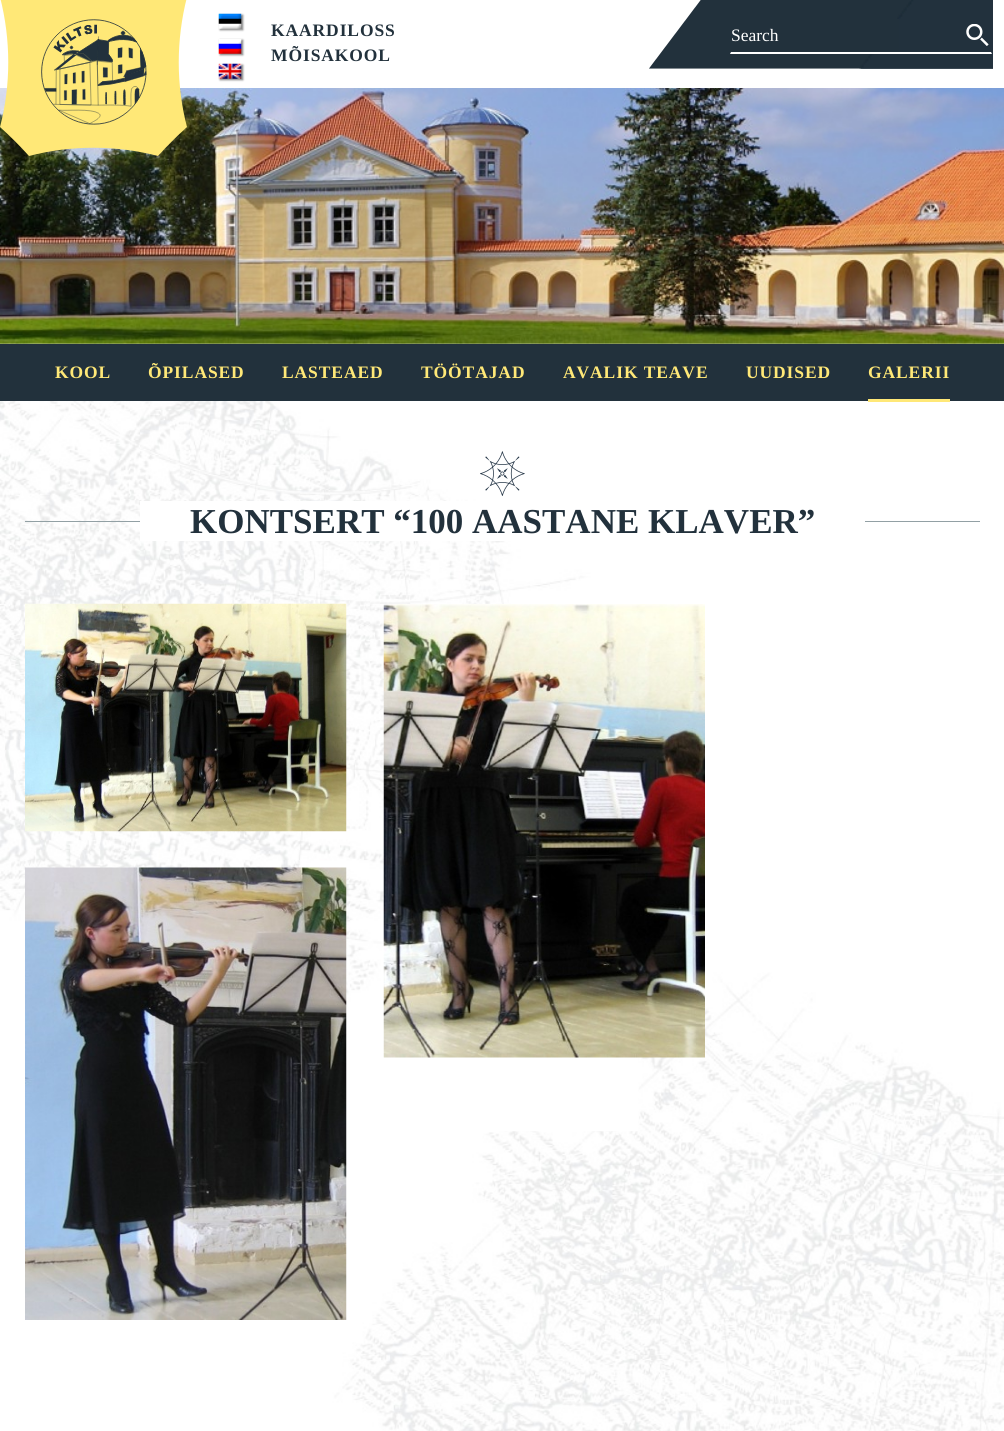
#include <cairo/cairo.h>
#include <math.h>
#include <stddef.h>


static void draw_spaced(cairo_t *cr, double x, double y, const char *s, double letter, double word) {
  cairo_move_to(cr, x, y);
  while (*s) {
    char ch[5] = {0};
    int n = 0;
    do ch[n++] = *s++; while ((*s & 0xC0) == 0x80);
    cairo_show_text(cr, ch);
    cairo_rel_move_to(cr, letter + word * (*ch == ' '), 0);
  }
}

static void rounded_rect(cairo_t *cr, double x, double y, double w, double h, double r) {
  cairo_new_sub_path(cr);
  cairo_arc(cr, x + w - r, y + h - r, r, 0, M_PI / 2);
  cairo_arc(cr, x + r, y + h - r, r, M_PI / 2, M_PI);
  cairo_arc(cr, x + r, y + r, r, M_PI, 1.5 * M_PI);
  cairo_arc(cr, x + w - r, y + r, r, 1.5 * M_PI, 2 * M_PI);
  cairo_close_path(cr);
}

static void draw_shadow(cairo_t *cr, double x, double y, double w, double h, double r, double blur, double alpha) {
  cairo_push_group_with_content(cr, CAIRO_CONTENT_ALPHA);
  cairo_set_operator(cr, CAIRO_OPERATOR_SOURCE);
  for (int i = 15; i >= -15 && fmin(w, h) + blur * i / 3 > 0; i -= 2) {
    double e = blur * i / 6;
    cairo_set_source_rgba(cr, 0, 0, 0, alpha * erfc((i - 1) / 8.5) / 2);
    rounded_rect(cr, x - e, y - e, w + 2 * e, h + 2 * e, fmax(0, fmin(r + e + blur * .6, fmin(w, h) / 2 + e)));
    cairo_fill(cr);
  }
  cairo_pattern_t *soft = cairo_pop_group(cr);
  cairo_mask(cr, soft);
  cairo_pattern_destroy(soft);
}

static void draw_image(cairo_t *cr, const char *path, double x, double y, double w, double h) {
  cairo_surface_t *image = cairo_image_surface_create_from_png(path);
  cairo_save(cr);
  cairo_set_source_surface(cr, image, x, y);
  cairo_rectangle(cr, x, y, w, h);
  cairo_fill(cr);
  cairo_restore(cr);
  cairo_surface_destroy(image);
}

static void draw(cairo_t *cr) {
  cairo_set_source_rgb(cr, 1, 1, 1);
  cairo_paint(cr);
  draw_image(cr, "images/1.png", 0, 343, 1004, 1088);
  draw_image(cr, "images/8.png", 0, 88, 1004, 256);
  cairo_set_source_rgb(cr, 1, 232 / 255.0, 119 / 255.0);
  cairo_set_fill_rule(cr, CAIRO_FILL_RULE_EVEN_ODD);
  cairo_new_path(cr);
  cairo_move_to(cr, 0, 127);
  cairo_curve_to(cr, 10, 136, 20, 146, 29, 156);
  cairo_curve_to(cr, 71, 145, 116, 145, 158, 156);
  cairo_curve_to(cr, 167, 146, 177, 136, 187, 127);
  cairo_curve_to(cr, 176, 85, 176, 40, 187, -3);
  cairo_curve_to(cr, 177, -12, 167, -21, 158, -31);
  cairo_curve_to(cr, 116, -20, 71, -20, 29, -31);
  cairo_curve_to(cr, 20, -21, 10, -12, 0, -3);
  cairo_curve_to(cr, 11, 40, 11, 85, 0, 127);
  cairo_fill(cr);
  draw_image(cr, "images/2.png", 41, 19, 106, 106);
  cairo_set_source_rgb(cr, 0, 0, 0);
  draw_shadow(cr, 220, 15, 23, 15, 0, 1, 0.5);
  draw_image(cr, "images/3.png", 218, 13, 24, 16);
  draw_shadow(cr, 220, 40, 23, 15, 0, 1, 0.5);
  draw_image(cr, "images/4.png", 218, 39, 24, 15);
  draw_shadow(cr, 220, 65, 23, 15, 0, 1, 0.5);
  draw_image(cr, "images/5.png", 218, 63, 24, 16);
  draw_image(cr, "images/6.png", 649, 0, 344, 69);
  cairo_set_source_rgb(cr, 34 / 255.0, 49 / 255.0, 60 / 255.0);
  cairo_rectangle(cr, 871, 19, 28, 35);
  cairo_fill(cr);
  cairo_set_source_rgb(cr, 1, 1, 1);
  cairo_set_fill_rule(cr, CAIRO_FILL_RULE_WINDING);
  cairo_new_path(cr);
  cairo_move_to(cr, 992, 54);
  cairo_line_to(cr, 730, 54);
  cairo_line_to(cr, 731, 52);
  cairo_line_to(cr, 991, 52);
  cairo_close_path(cr);
  cairo_fill(cr);
  draw_image(cr, "images/7.png", 966, 24, 23, 22);
  cairo_set_source_rgb(cr, 34 / 255.0, 49 / 255.0, 60 / 255.0);
  cairo_rectangle(cr, 0, 344, 1004, 57);
  cairo_fill(cr);
  cairo_set_source_rgb(cr, 1, 232 / 255.0, 119 / 255.0);
  cairo_rectangle(cr, 868, 399, 82, 3);
  cairo_fill(cr);
  cairo_set_source_rgb(cr, 146 / 255.0, 160 / 255.0, 164 / 255.0);
  cairo_rectangle(cr, 25, 521, 955, 1);
  cairo_fill(cr);
  cairo_set_source_rgb(cr, 1, 1, 1);
  cairo_rectangle(cr, 140, 501, 725, 40);
  cairo_fill(cr);
  draw_image(cr, "images/9.png", 480, 451, 45, 45);
  draw_image(cr, "images/10.png", 25, 603, 322, 229);
  draw_image(cr, "images/11.png", 383, 604, 322, 454);
  draw_image(cr, "images/12.png", 25, 867, 322, 453);
  cairo_select_font_face(cr, "Liberation Serif", CAIRO_FONT_SLANT_NORMAL, CAIRO_FONT_WEIGHT_BOLD);
  cairo_set_font_size(cr, 17.5);
  cairo_set_source_rgb(cr, 34 / 255.0, 49 / 255.0, 60 / 255.0);
  draw_spaced(cr, 271, 36, "KAARDILOSS", 0.9, 0);
  draw_spaced(cr, 271, 61, "MÕISAKOOL", 0.9, 0);
  cairo_select_font_face(cr, "Liberation Serif", CAIRO_FONT_SLANT_NORMAL, CAIRO_FONT_WEIGHT_NORMAL);
  cairo_set_source_rgb(cr, 1, 1, 1);
  cairo_move_to(cr, 731, 41);
  cairo_show_text(cr, "Search");
  cairo_select_font_face(cr, "Liberation Serif", CAIRO_FONT_SLANT_NORMAL, CAIRO_FONT_WEIGHT_BOLD);
  cairo_set_source_rgb(cr, 1, 232 / 255.0, 119 / 255.0);
  draw_spaced(cr, 55, 378, "KOOL", 0.9, 0);
  draw_spaced(cr, 148, 378, "ÕPILASED", 0.9, 0);
  draw_spaced(cr, 282, 378, "LASTEAED", 0.9, 0);
  draw_spaced(cr, 421, 378, "TÖÖTAJAD", 0.9, 0);
  draw_spaced(cr, 563, 378, "AVALIK TEAVE", 0.9, 0);
  draw_spaced(cr, 746, 378, "UUDISED", 0.9, 0);
  draw_spaced(cr, 868, 378, "GALERII", 0.9, 0);
  cairo_set_font_size(cr, 35);
  cairo_set_source_rgb(cr, 34 / 255.0, 49 / 255.0, 60 / 255.0);
  cairo_move_to(cr, 190, 533);
  cairo_show_text(cr, "KONTSERT “100 AASTANE KLAVER”");
}

int main(void) {
  cairo_surface_t *surface = cairo_image_surface_create(CAIRO_FORMAT_RGB24, 1004, 1431);
  cairo_t *cr = cairo_create(surface);
  cairo_font_options_t *options = cairo_font_options_create();
  cairo_font_options_set_hint_metrics(options, CAIRO_HINT_METRICS_OFF);
  cairo_font_options_set_hint_style(options, CAIRO_HINT_STYLE_NONE);
  cairo_set_font_options(cr, options);
  cairo_set_miter_limit(cr, 4);
  draw(cr);
  cairo_surface_write_to_png(surface, "out.png");
  cairo_font_options_destroy(options);
  cairo_destroy(cr);
  cairo_surface_destroy(surface);
  return 0;
}
